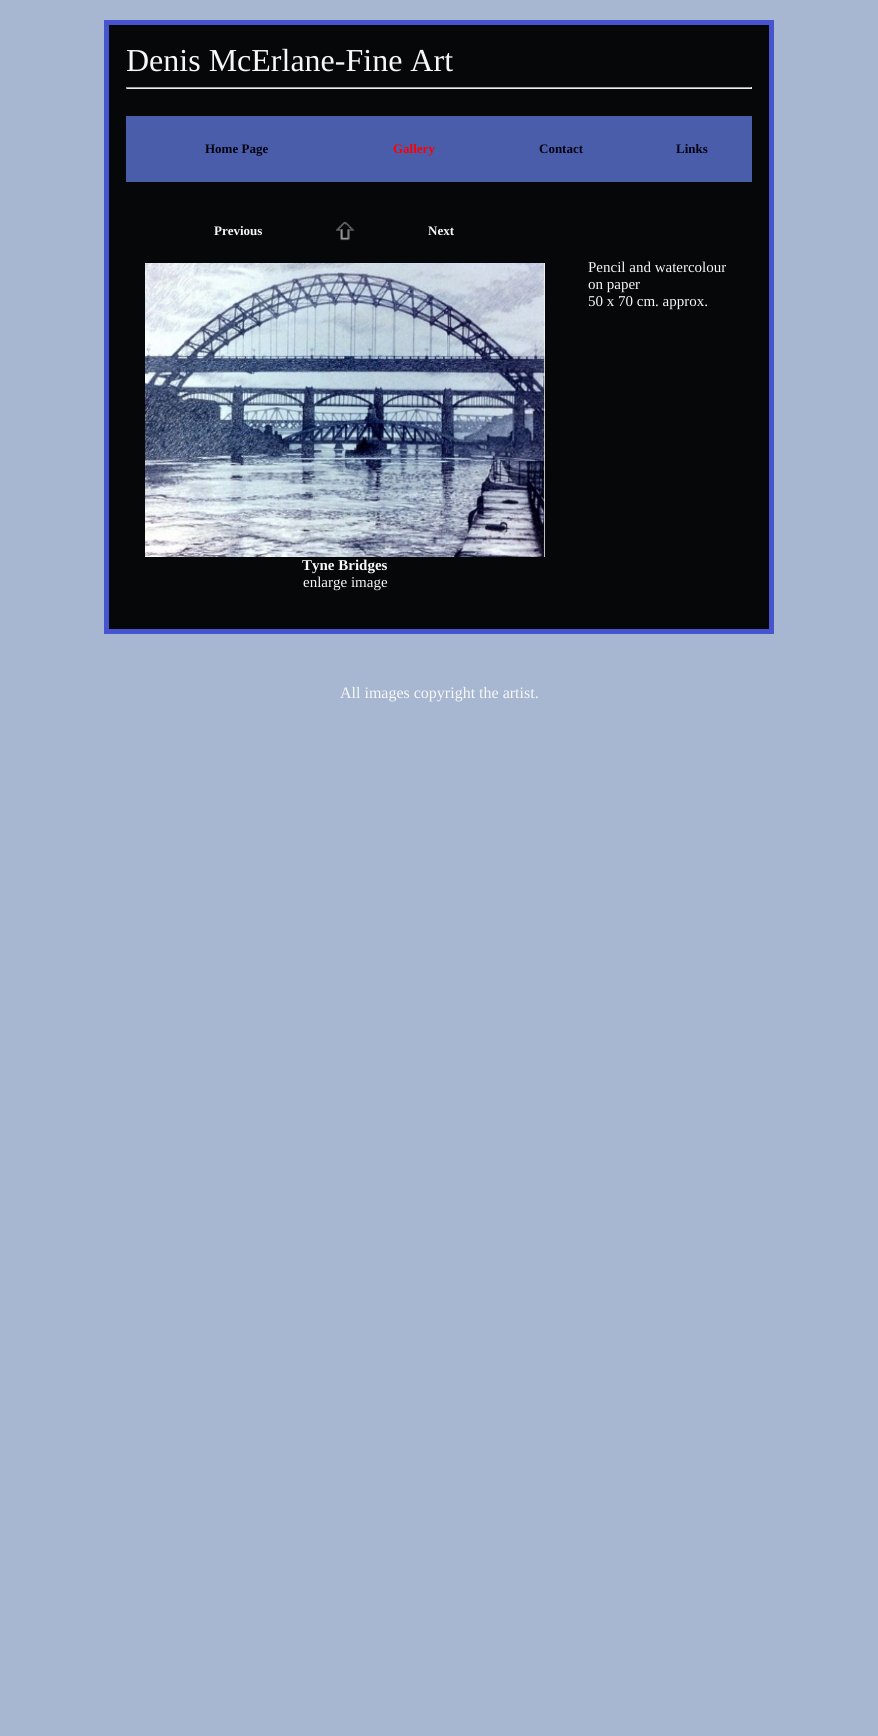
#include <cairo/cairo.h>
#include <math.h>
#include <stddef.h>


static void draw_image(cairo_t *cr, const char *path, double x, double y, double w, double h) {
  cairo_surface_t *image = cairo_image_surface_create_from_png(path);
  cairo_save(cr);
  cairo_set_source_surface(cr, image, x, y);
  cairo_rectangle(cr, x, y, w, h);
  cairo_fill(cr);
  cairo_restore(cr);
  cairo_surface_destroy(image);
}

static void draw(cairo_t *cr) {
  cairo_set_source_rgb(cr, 167 / 255.0, 183 / 255.0, 209 / 255.0);
  cairo_paint(cr);
  cairo_set_source_rgb(cr, 6 / 255.0, 7 / 255.0, 8 / 255.0);
  cairo_rectangle(cr, 106.5, 22.5, 665, 609);
  cairo_fill_preserve(cr);
  cairo_set_source_rgb(cr, 70 / 255.0, 84 / 255.0, 207 / 255.0);
  cairo_set_line_width(cr, 5);
  cairo_stroke(cr);
  cairo_set_source_rgb(cr, 159 / 255.0, 159 / 255.0, 159 / 255.0);
  cairo_rectangle(cr, 126, 87, 626, 1);
  cairo_fill(cr);
  cairo_set_source_rgb(cr, 238 / 255.0, 238 / 255.0, 238 / 255.0);
  cairo_rectangle(cr, 751, 87, 1, 2);
  cairo_fill(cr);
  cairo_rectangle(cr, 126, 88, 626, 1);
  cairo_fill(cr);
  cairo_set_source_rgb(cr, 159 / 255.0, 159 / 255.0, 159 / 255.0);
  cairo_rectangle(cr, 126, 87, 1, 2);
  cairo_fill(cr);
  cairo_set_source_rgb(cr, 73 / 255.0, 93 / 255.0, 171 / 255.0);
  cairo_rectangle(cr, 126, 116, 626, 66);
  cairo_fill(cr);
  draw_image(cr, "images/1.png", 336, 221, 19, 20);
  draw_image(cr, "images/2.png", 145, 263, 400, 294);
  cairo_select_font_face(cr, "Liberation Serif", CAIRO_FONT_SLANT_NORMAL, CAIRO_FONT_WEIGHT_NORMAL);
  cairo_set_font_size(cr, 32);
  cairo_set_source_rgb(cr, 247 / 255.0, 247 / 255.0, 247 / 255.0);
  cairo_move_to(cr, 126, 71);
  cairo_show_text(cr, "Denis McErlane-Fine Art");
  cairo_select_font_face(cr, "Liberation Serif", CAIRO_FONT_SLANT_NORMAL, CAIRO_FONT_WEIGHT_BOLD);
  cairo_set_font_size(cr, 13);
  cairo_set_source_rgb(cr, 5 / 255.0, 2 / 255.0, 15 / 255.0);
  cairo_move_to(cr, 205, 153);
  cairo_show_text(cr, "Home Page");
  cairo_set_source_rgb(cr, 1, 0, 0);
  cairo_move_to(cr, 393, 153);
  cairo_show_text(cr, "Gallery");
  cairo_set_source_rgb(cr, 5 / 255.0, 2 / 255.0, 15 / 255.0);
  cairo_move_to(cr, 539, 153);
  cairo_show_text(cr, "Contact");
  cairo_move_to(cr, 676, 153);
  cairo_show_text(cr, "Links");
  cairo_set_source_rgb(cr, 247 / 255.0, 247 / 255.0, 247 / 255.0);
  cairo_move_to(cr, 214, 235);
  cairo_show_text(cr, "Previous");
  cairo_move_to(cr, 428, 235);
  cairo_show_text(cr, "Next");
  cairo_set_font_size(cr, 15);
  cairo_move_to(cr, 302, 570);
  cairo_show_text(cr, "Tyne Bridges");
  cairo_select_font_face(cr, "Liberation Serif", CAIRO_FONT_SLANT_NORMAL, CAIRO_FONT_WEIGHT_NORMAL);
  cairo_move_to(cr, 303, 587);
  cairo_show_text(cr, "enlarge image");
  cairo_move_to(cr, 588, 272);
  cairo_show_text(cr, "Pencil and watercolour");
  cairo_move_to(cr, 588, 289);
  cairo_show_text(cr, "on paper");
  cairo_move_to(cr, 588, 306);
  cairo_show_text(cr, "50 x 70 cm. approx.");
  cairo_set_font_size(cr, 16);
  cairo_move_to(cr, 340, 698);
  cairo_show_text(cr, "All images copyright the artist.");
}

int main(void) {
  cairo_surface_t *surface = cairo_image_surface_create(CAIRO_FORMAT_RGB24, 878, 1736);
  cairo_t *cr = cairo_create(surface);
  cairo_font_options_t *options = cairo_font_options_create();
  cairo_font_options_set_hint_metrics(options, CAIRO_HINT_METRICS_OFF);
  cairo_font_options_set_hint_style(options, CAIRO_HINT_STYLE_NONE);
  cairo_set_font_options(cr, options);
  cairo_set_miter_limit(cr, 4);
  draw(cr);
  cairo_surface_write_to_png(surface, "out.png");
  cairo_font_options_destroy(options);
  cairo_destroy(cr);
  cairo_surface_destroy(surface);
  return 0;
}
